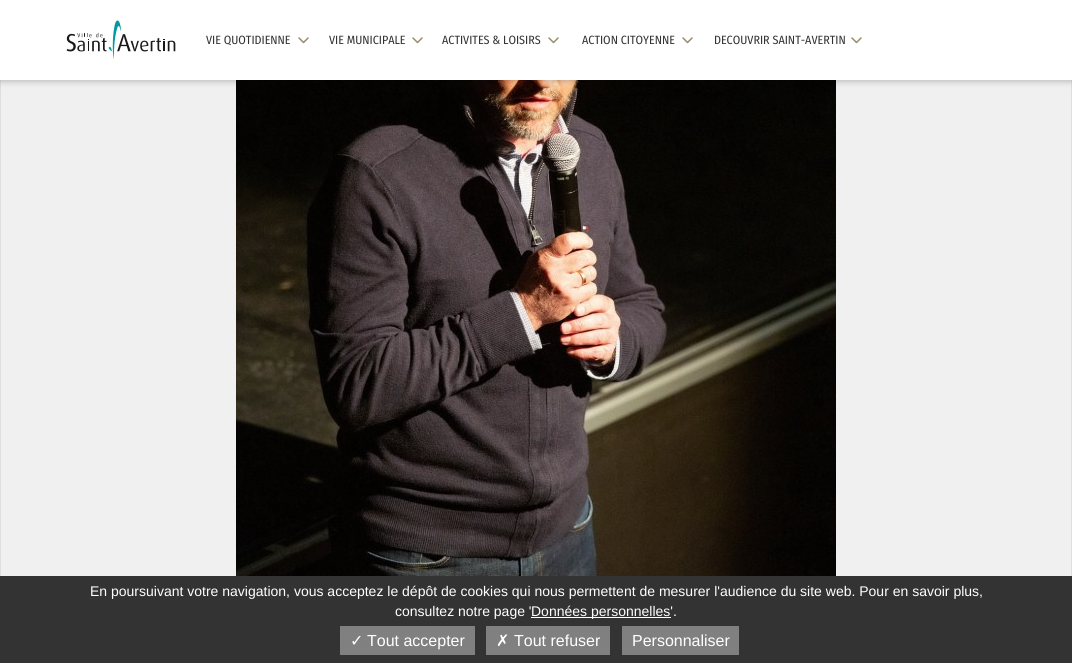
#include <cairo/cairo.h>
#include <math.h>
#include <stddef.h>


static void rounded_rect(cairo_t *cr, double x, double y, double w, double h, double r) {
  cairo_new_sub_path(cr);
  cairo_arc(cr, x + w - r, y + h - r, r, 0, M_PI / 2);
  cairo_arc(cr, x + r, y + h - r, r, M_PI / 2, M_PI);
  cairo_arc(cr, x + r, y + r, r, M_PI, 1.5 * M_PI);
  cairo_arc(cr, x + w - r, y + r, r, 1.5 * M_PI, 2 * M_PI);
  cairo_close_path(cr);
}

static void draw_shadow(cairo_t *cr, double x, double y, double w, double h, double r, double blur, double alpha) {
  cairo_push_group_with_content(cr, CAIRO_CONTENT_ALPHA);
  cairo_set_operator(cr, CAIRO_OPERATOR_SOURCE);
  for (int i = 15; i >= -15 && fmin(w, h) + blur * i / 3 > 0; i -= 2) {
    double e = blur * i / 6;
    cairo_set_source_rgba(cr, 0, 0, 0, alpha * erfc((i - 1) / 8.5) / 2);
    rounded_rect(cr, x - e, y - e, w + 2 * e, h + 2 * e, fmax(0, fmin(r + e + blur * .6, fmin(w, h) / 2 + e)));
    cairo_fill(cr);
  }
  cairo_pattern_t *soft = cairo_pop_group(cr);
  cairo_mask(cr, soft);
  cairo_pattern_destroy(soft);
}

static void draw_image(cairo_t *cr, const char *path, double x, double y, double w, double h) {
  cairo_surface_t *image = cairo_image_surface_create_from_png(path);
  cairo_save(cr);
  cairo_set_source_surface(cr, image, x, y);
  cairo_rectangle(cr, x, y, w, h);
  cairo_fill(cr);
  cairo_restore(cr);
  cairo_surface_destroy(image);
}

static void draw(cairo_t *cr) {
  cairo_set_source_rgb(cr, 240 / 255.0, 240 / 255.0, 240 / 255.0);
  cairo_paint(cr);
  cairo_rectangle(cr, 0.5, -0.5, 1071, 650);
  cairo_set_source_rgb(cr, 222 / 255.0, 222 / 255.0, 222 / 255.0);
  cairo_set_line_width(cr, 1);
  cairo_stroke(cr);
  draw_image(cr, "images/1.png", 236, 80, 600, 496);
  cairo_set_source_rgb(cr, 0, 0, 0);
  draw_shadow(cr, 0, 2, 1072, 80, 0, 3, 0.2);
  cairo_set_source_rgb(cr, 1, 1, 1);
  cairo_rectangle(cr, 0, 0, 1072, 80);
  cairo_fill(cr);
  draw_image(cr, "images/2.png", 66, 20, 110, 39);
  cairo_new_path(cr);
  cairo_move_to(cr, 299, 38);
  cairo_line_to(cr, 303.5, 42.5);
  cairo_line_to(cr, 308, 38);
  cairo_set_source_rgb(cr, 151 / 255.0, 141 / 255.0, 104 / 255.0);
  cairo_set_line_width(cr, 1.5);
  cairo_set_line_cap(cr, CAIRO_LINE_CAP_ROUND);
  cairo_set_line_join(cr, CAIRO_LINE_JOIN_ROUND);
  cairo_stroke(cr);
  cairo_new_path(cr);
  cairo_move_to(cr, 413, 38);
  cairo_line_to(cr, 417.5, 42.5);
  cairo_line_to(cr, 422, 38);
  cairo_stroke(cr);
  cairo_new_path(cr);
  cairo_move_to(cr, 549, 38);
  cairo_line_to(cr, 553.5, 42.5);
  cairo_line_to(cr, 558, 38);
  cairo_stroke(cr);
  cairo_new_path(cr);
  cairo_move_to(cr, 683, 38);
  cairo_line_to(cr, 687.5, 42.5);
  cairo_line_to(cr, 692, 38);
  cairo_stroke(cr);
  cairo_new_path(cr);
  cairo_move_to(cr, 852, 38);
  cairo_line_to(cr, 856.5, 42.5);
  cairo_line_to(cr, 861, 38);
  cairo_stroke(cr);
  cairo_set_source_rgb(cr, 51 / 255.0, 51 / 255.0, 51 / 255.0);
  cairo_rectangle(cr, 0, 576, 1072, 87);
  cairo_fill(cr);
  cairo_set_source_rgb(cr, 1, 1, 1);
  cairo_rectangle(cr, 531, 617, 140, 1);
  cairo_fill(cr);
  cairo_set_source_rgb(cr, 128 / 255.0, 128 / 255.0, 128 / 255.0);
  cairo_rectangle(cr, 340, 626, 135, 29);
  cairo_fill(cr);
  cairo_rectangle(cr, 486, 626, 124, 29);
  cairo_fill(cr);
  cairo_rectangle(cr, 622, 626, 117, 29);
  cairo_fill(cr);
  cairo_select_font_face(cr, "Fira Sans Condensed", CAIRO_FONT_SLANT_NORMAL, CAIRO_FONT_WEIGHT_NORMAL);
  cairo_set_font_size(cr, 12);
  cairo_set_source_rgb(cr, 51 / 255.0, 51 / 255.0, 51 / 255.0);
  cairo_move_to(cr, 206, 44);
  cairo_show_text(cr, "VIE QUOTIDIENNE");
  cairo_move_to(cr, 329, 44);
  cairo_show_text(cr, "VIE MUNICIPALE");
  cairo_move_to(cr, 442, 44);
  cairo_show_text(cr, "ACTIVITES & LOISIRS");
  cairo_move_to(cr, 582, 44);
  cairo_show_text(cr, "ACTION CITOYENNE");
  cairo_move_to(cr, 714, 44);
  cairo_show_text(cr, "DECOUVRIR SAINT-AVERTIN");
  cairo_select_font_face(cr, "Liberation Sans", CAIRO_FONT_SLANT_NORMAL, CAIRO_FONT_WEIGHT_NORMAL);
  cairo_set_font_size(cr, 14);
  cairo_set_source_rgb(cr, 1, 1, 1);
  cairo_move_to(cr, 90, 596);
  cairo_show_text(cr, "En poursuivant votre navigation, vous acceptez le dépôt de cookies qui nous permettent de mesurer l'audience du site web. Pour en savoir plus,");
  cairo_move_to(cr, 395, 616);
  cairo_show_text(cr, "consultez notre page '");
  cairo_move_to(cr, 531, 616);
  cairo_show_text(cr, "Données personnelles'.");
  cairo_select_font_face(cr, "DejaVu Sans", CAIRO_FONT_SLANT_NORMAL, CAIRO_FONT_WEIGHT_NORMAL);
  cairo_set_font_size(cr, 16);
  cairo_move_to(cr, 350, 646);
  cairo_show_text(cr, "✓");
  cairo_select_font_face(cr, "Liberation Sans", CAIRO_FONT_SLANT_NORMAL, CAIRO_FONT_WEIGHT_NORMAL);
  cairo_move_to(cr, 367, 646);
  cairo_show_text(cr, "Tout accepter");
  cairo_select_font_face(cr, "DejaVu Sans", CAIRO_FONT_SLANT_NORMAL, CAIRO_FONT_WEIGHT_NORMAL);
  cairo_move_to(cr, 496, 646);
  cairo_show_text(cr, "✗");
  cairo_select_font_face(cr, "Liberation Sans", CAIRO_FONT_SLANT_NORMAL, CAIRO_FONT_WEIGHT_NORMAL);
  cairo_move_to(cr, 514, 646);
  cairo_show_text(cr, "Tout refuser");
  cairo_move_to(cr, 632, 646);
  cairo_show_text(cr, "Personnaliser");
}

int main(void) {
  cairo_surface_t *surface = cairo_image_surface_create(CAIRO_FORMAT_RGB24, 1072, 663);
  cairo_t *cr = cairo_create(surface);
  cairo_font_options_t *options = cairo_font_options_create();
  cairo_font_options_set_hint_metrics(options, CAIRO_HINT_METRICS_OFF);
  cairo_font_options_set_hint_style(options, CAIRO_HINT_STYLE_NONE);
  cairo_set_font_options(cr, options);
  cairo_set_miter_limit(cr, 4);
  draw(cr);
  cairo_surface_write_to_png(surface, "out.png");
  cairo_font_options_destroy(options);
  cairo_destroy(cr);
  cairo_surface_destroy(surface);
  return 0;
}
